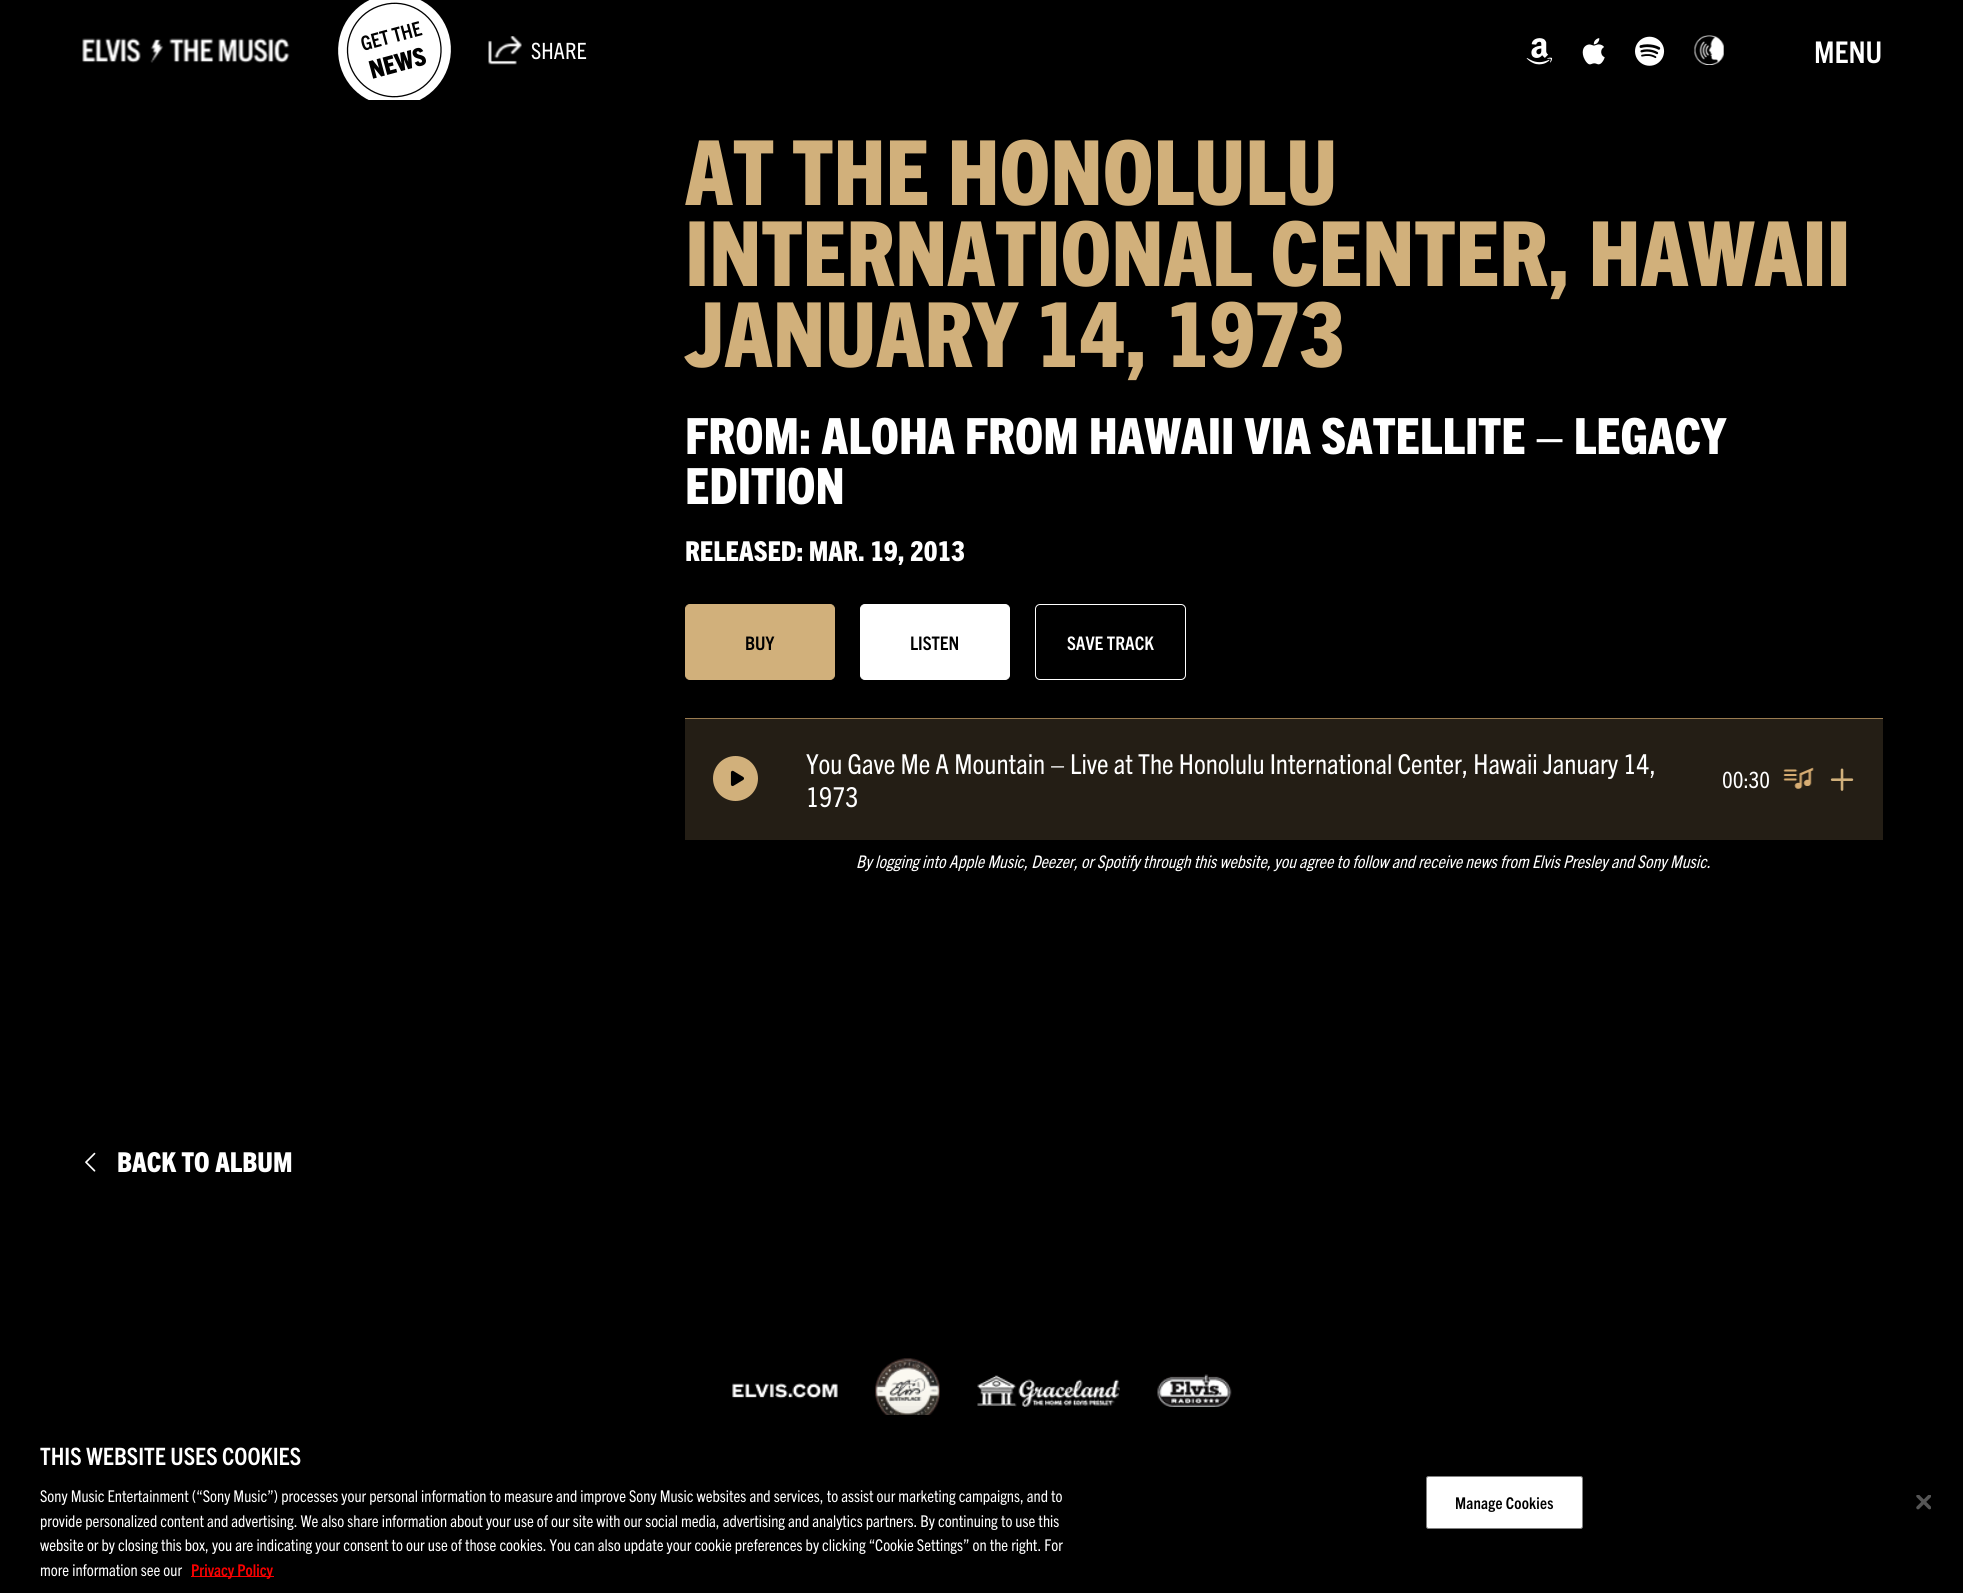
#include <cairo/cairo.h>
#include <math.h>
#include <stddef.h>


static void draw_spaced(cairo_t *cr, double x, double y, const char *s, double letter, double word) {
  cairo_move_to(cr, x, y);
  while (*s) {
    char ch[5] = {0};
    int n = 0;
    do ch[n++] = *s++; while ((*s & 0xC0) == 0x80);
    cairo_show_text(cr, ch);
    cairo_rel_move_to(cr, letter + word * (*ch == ' '), 0);
  }
}

static void rounded_rect(cairo_t *cr, double x, double y, double w, double h, double r) {
  cairo_new_sub_path(cr);
  cairo_arc(cr, x + w - r, y + h - r, r, 0, M_PI / 2);
  cairo_arc(cr, x + r, y + h - r, r, M_PI / 2, M_PI);
  cairo_arc(cr, x + r, y + r, r, M_PI, 1.5 * M_PI);
  cairo_arc(cr, x + w - r, y + r, r, 1.5 * M_PI, 2 * M_PI);
  cairo_close_path(cr);
}

static void draw_shadow(cairo_t *cr, double x, double y, double w, double h, double r, double blur, double alpha) {
  cairo_push_group_with_content(cr, CAIRO_CONTENT_ALPHA);
  cairo_set_operator(cr, CAIRO_OPERATOR_SOURCE);
  for (int i = 15; i >= -15 && fmin(w, h) + blur * i / 3 > 0; i -= 2) {
    double e = blur * i / 6;
    cairo_set_source_rgba(cr, 0, 0, 0, alpha * erfc((i - 1) / 8.5) / 2);
    rounded_rect(cr, x - e, y - e, w + 2 * e, h + 2 * e, fmax(0, fmin(r + e + blur * .6, fmin(w, h) / 2 + e)));
    cairo_fill(cr);
  }
  cairo_pattern_t *soft = cairo_pop_group(cr);
  cairo_mask(cr, soft);
  cairo_pattern_destroy(soft);
}

static void draw_image(cairo_t *cr, const char *path, double x, double y, double w, double h) {
  cairo_surface_t *image = cairo_image_surface_create_from_png(path);
  cairo_save(cr);
  cairo_set_source_surface(cr, image, x, y);
  cairo_rectangle(cr, x, y, w, h);
  cairo_fill(cr);
  cairo_restore(cr);
  cairo_surface_destroy(image);
}

static void draw(cairo_t *cr) {
  cairo_set_source_rgb(cr, 0, 0, 0);
  cairo_paint(cr);
  draw_image(cr, "images/1.png", 82, 38, 208, 25);
  cairo_save(cr);
  cairo_rectangle(cr, 83, 0, 506, 100);
  cairo_clip(cr);
  cairo_set_source_rgb(cr, 1, 1, 1);
  cairo_new_path(cr);
  cairo_move_to(cr, 380, -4);
  cairo_curve_to(cr, 410, -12, 441, 5, 449, 35);
  cairo_curve_to(cr, 457, 65, 439, 96, 409, 104);
  cairo_curve_to(cr, 379, 112, 348, 95, 340, 65);
  cairo_curve_to(cr, 332, 35, 350, 4, 380, -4);
  cairo_close_path(cr);
  cairo_fill(cr);
  cairo_restore(cr);
  cairo_new_path(cr);
  cairo_move_to(cr, 382.5, 5);
  cairo_curve_to(cr, 407, -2, 433, 13, 439.5, 38);
  cairo_curve_to(cr, 446, 63, 431.5, 88.5, 406.5, 95);
  cairo_curve_to(cr, 381.5, 102, 356, 87, 349, 62);
  cairo_curve_to(cr, 342.5, 37, 357.5, 11.5, 382.5, 5);
  cairo_close_path(cr);
  cairo_set_source_rgb(cr, 0, 0, 0);
  cairo_set_line_width(cr, 1.3);
  cairo_stroke(cr);
  draw_image(cr, "images/2.png", 488, 36, 34, 29);
  draw_image(cr, "images/3.png", 1526, 38, 27, 27);
  draw_image(cr, "images/4.png", 1582, 38, 23, 27);
  draw_image(cr, "images/5.png", 1635, 36, 30, 30);
  draw_image(cr, "images/6.png", 1693, 35, 31, 30);
  cairo_set_source_rgb(cr, 209 / 255.0, 176 / 255.0, 123 / 255.0);
  rounded_rect(cr, 685.5, 604.5, 149, 75, 4.5);
  cairo_fill_preserve(cr);
  cairo_set_line_width(cr, 1);
  cairo_stroke(cr);
  cairo_set_source_rgb(cr, 1, 1, 1);
  rounded_rect(cr, 860.5, 604.5, 149, 75, 4.5);
  cairo_fill_preserve(cr);
  cairo_stroke(cr);
  rounded_rect(cr, 1035.5, 604.5, 150, 75, 4.5);
  cairo_stroke(cr);
  cairo_set_source_rgb(cr, 36 / 255.0, 30 / 255.0, 21 / 255.0);
  cairo_rectangle(cr, 685, 719, 1198, 121);
  cairo_fill(cr);
  cairo_set_source_rgb(cr, 153 / 255.0, 123 / 255.0, 80 / 255.0);
  cairo_rectangle(cr, 685, 718, 1198, 1);
  cairo_fill(cr);
  cairo_set_source_rgb(cr, 209 / 255.0, 176 / 255.0, 123 / 255.0);
  cairo_arc(cr, 735.5, 778.5, 22.5, 0, 2 * M_PI);
  cairo_fill(cr);
  draw_image(cr, "images/7.png", 730, 770, 14, 17);
  draw_image(cr, "images/8.png", 1783, 767, 31, 22);
  draw_image(cr, "images/9.png", 1830, 768, 24, 23);
  draw_image(cr, "images/10.png", 85, 1152, 11, 20);
  draw_image(cr, "images/11.png", 732, 1383, 106, 16);
  draw_image(cr, "images/12.png", 875, 1358, 65, 57);
  draw_image(cr, "images/13.png", 977, 1375, 143, 32);
  draw_image(cr, "images/14.png", 1157, 1374, 75, 33);
  cairo_set_source_rgb(cr, 0, 0, 0);
  draw_shadow(cr, 0, 1415, 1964, 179, 0, 11, 0.2);
  cairo_set_source_rgb(cr, 249 / 255.0, 0, 0);
  cairo_rectangle(cr, 191, 1576, 83, 1);
  cairo_fill(cr);
  cairo_set_source_rgb(cr, 1, 1, 1);
  rounded_rect(cr, 1426.5, 1476.5, 156, 52, 2);
  cairo_fill_preserve(cr);
  cairo_set_source_rgb(cr, 128 / 255.0, 128 / 255.0, 128 / 255.0);
  cairo_stroke(cr);
  draw_image(cr, "images/15.png", 1916, 1495, 15, 15);
  cairo_select_font_face(cr, "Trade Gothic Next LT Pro", CAIRO_FONT_SLANT_NORMAL, CAIRO_FONT_WEIGHT_BOLD);
  cairo_set_font_size(cr, 20);
  cairo_set_source_rgb(cr, 0, 0, 0);
  cairo_save(cr);
  cairo_translate(cr, 363, 51);
  cairo_rotate(cr, -15 * M_PI / 180);
  cairo_move_to(cr, 0, 0);
  cairo_show_text(cr, "GET THE");
  cairo_restore(cr);
  cairo_select_font_face(cr, "Trade Gothic Next LT Pro ExtraBold", CAIRO_FONT_SLANT_NORMAL, CAIRO_FONT_WEIGHT_NORMAL);
  cairo_set_font_size(cr, 25);
  cairo_save(cr);
  cairo_translate(cr, 372, 79);
  cairo_rotate(cr, -15 * M_PI / 180);
  cairo_move_to(cr, 0, 0);
  cairo_show_text(cr, "NEWS");
  cairo_restore(cr);
  cairo_select_font_face(cr, "Trade Gothic Next LT Pro", CAIRO_FONT_SLANT_NORMAL, CAIRO_FONT_WEIGHT_NORMAL);
  cairo_set_font_size(cr, 22.5);
  cairo_set_source_rgb(cr, 1, 1, 1);
  cairo_move_to(cr, 531, 59);
  cairo_show_text(cr, "SHARE");
  cairo_select_font_face(cr, "Trade Gothic Next LT Pro", CAIRO_FONT_SLANT_NORMAL, CAIRO_FONT_WEIGHT_BOLD);
  cairo_set_font_size(cr, 30);
  cairo_move_to(cr, 1814, 63);
  cairo_show_text(cr, "MENU");
  cairo_select_font_face(cr, "Trade Gothic Next LT Pro ExtraBold", CAIRO_FONT_SLANT_NORMAL, CAIRO_FONT_WEIGHT_NORMAL);
  cairo_set_font_size(cr, 90);
  cairo_set_source_rgb(cr, 209 / 255.0, 176 / 255.0, 123 / 255.0);
  cairo_move_to(cr, 685, 205);
  cairo_show_text(cr, "AT THE HONOLULU");
  cairo_move_to(cr, 685, 286);
  cairo_show_text(cr, "INTERNATIONAL CENTER, HAWAII");
  cairo_move_to(cr, 685, 367);
  cairo_show_text(cr, "JANUARY 14, 1973");
  cairo_set_font_size(cr, 50);
  cairo_set_source_rgb(cr, 1, 1, 1);
  cairo_move_to(cr, 685, 454);
  cairo_show_text(cr, "FROM: ALOHA FROM HAWAII VIA SATELLITE – LEGACY");
  cairo_move_to(cr, 685, 504);
  cairo_show_text(cr, "EDITION");
  cairo_set_font_size(cr, 27.5);
  cairo_move_to(cr, 685, 561);
  cairo_show_text(cr, "RELEASED: MAR. 19, 2013");
  cairo_select_font_face(cr, "Trade Gothic Next LT Pro", CAIRO_FONT_SLANT_NORMAL, CAIRO_FONT_WEIGHT_BOLD);
  cairo_set_font_size(cr, 18.75);
  cairo_set_source_rgb(cr, 0, 0, 0);
  cairo_move_to(cr, 745, 650);
  cairo_show_text(cr, "BUY");
  cairo_move_to(cr, 910, 650);
  cairo_show_text(cr, "LISTEN");
  cairo_set_source_rgb(cr, 1, 1, 1);
  cairo_move_to(cr, 1067, 650);
  cairo_show_text(cr, "SAVE TRACK");
  cairo_select_font_face(cr, "Trade Gothic Next LT Pro", CAIRO_FONT_SLANT_NORMAL, CAIRO_FONT_WEIGHT_NORMAL);
  cairo_set_font_size(cr, 27.5);
  cairo_move_to(cr, 806, 774);
  cairo_show_text(cr, "You Gave Me A Mountain – Live at The Honolulu International Center, Hawaii January 14,");
  cairo_move_to(cr, 806, 807);
  cairo_show_text(cr, "1973");
  cairo_set_font_size(cr, 22.5);
  cairo_move_to(cr, 1722, 788);
  cairo_show_text(cr, "00:30");
  cairo_select_font_face(cr, "Trade Gothic Next LT Pro", CAIRO_FONT_SLANT_ITALIC, CAIRO_FONT_WEIGHT_NORMAL);
  cairo_set_font_size(cr, 17.5);
  cairo_move_to(cr, 856, 868);
  cairo_show_text(cr, "By logging into Apple Music, Deezer, or Spotify through this website, you agree to follow and receive news from Elvis Presley and Sony Music.");
  cairo_select_font_face(cr, "Trade Gothic Next LT Pro ExtraBold", CAIRO_FONT_SLANT_NORMAL, CAIRO_FONT_WEIGHT_NORMAL);
  cairo_set_font_size(cr, 27.5);
  cairo_move_to(cr, 117, 1172);
  cairo_show_text(cr, "BACK TO ALBUM");
  cairo_select_font_face(cr, "Trade Gothic Next LT Pro", CAIRO_FONT_SLANT_NORMAL, CAIRO_FONT_WEIGHT_BOLD);
  cairo_set_font_size(cr, 24);
  cairo_move_to(cr, 40, 1465);
  cairo_show_text(cr, "THIS WEBSITE USES COOKIES");
  cairo_select_font_face(cr, "Trade Gothic Next LT Pro", CAIRO_FONT_SLANT_NORMAL, CAIRO_FONT_WEIGHT_NORMAL);
  cairo_set_font_size(cr, 16.25);
  cairo_move_to(cr, 40, 1502);
  cairo_show_text(cr, "Sony Music Entertainment (“Sony Music”) processes your personal information to measure and improve Sony Music websites and services, to assist our marketing campaigns, and to");
  cairo_move_to(cr, 40, 1527);
  cairo_show_text(cr, "provide personalized content and advertising. We also share information about your use of our site with our social media, advertising and analytics partners. By continuing to use this");
  cairo_move_to(cr, 40, 1551);
  cairo_show_text(cr, "website or by closing this box, you are indicating your consent to our use of those cookies. You can also update your cookie preferences by clicking “Cookie Settings” on the right. For");
  cairo_move_to(cr, 40, 1576);
  cairo_show_text(cr, "more information see our");
  cairo_select_font_face(cr, "Trade Gothic Next LT Pro", CAIRO_FONT_SLANT_NORMAL, CAIRO_FONT_WEIGHT_BOLD);
  cairo_set_source_rgb(cr, 249 / 255.0, 0, 0);
  cairo_move_to(cr, 191, 1576);
  cairo_show_text(cr, "Privacy Policy");
  cairo_set_source_rgb(cr, 0, 0, 0);
  draw_spaced(cr, 1455, 1509, "Manage Cookies", 0.2, 0);
}

int main(void) {
  cairo_surface_t *surface = cairo_image_surface_create(CAIRO_FORMAT_RGB24, 1963, 1593);
  cairo_t *cr = cairo_create(surface);
  cairo_font_options_t *options = cairo_font_options_create();
  cairo_font_options_set_hint_metrics(options, CAIRO_HINT_METRICS_OFF);
  cairo_font_options_set_hint_style(options, CAIRO_HINT_STYLE_NONE);
  cairo_set_font_options(cr, options);
  cairo_set_miter_limit(cr, 4);
  draw(cr);
  cairo_surface_write_to_png(surface, "out.png");
  cairo_font_options_destroy(options);
  cairo_destroy(cr);
  cairo_surface_destroy(surface);
  return 0;
}
